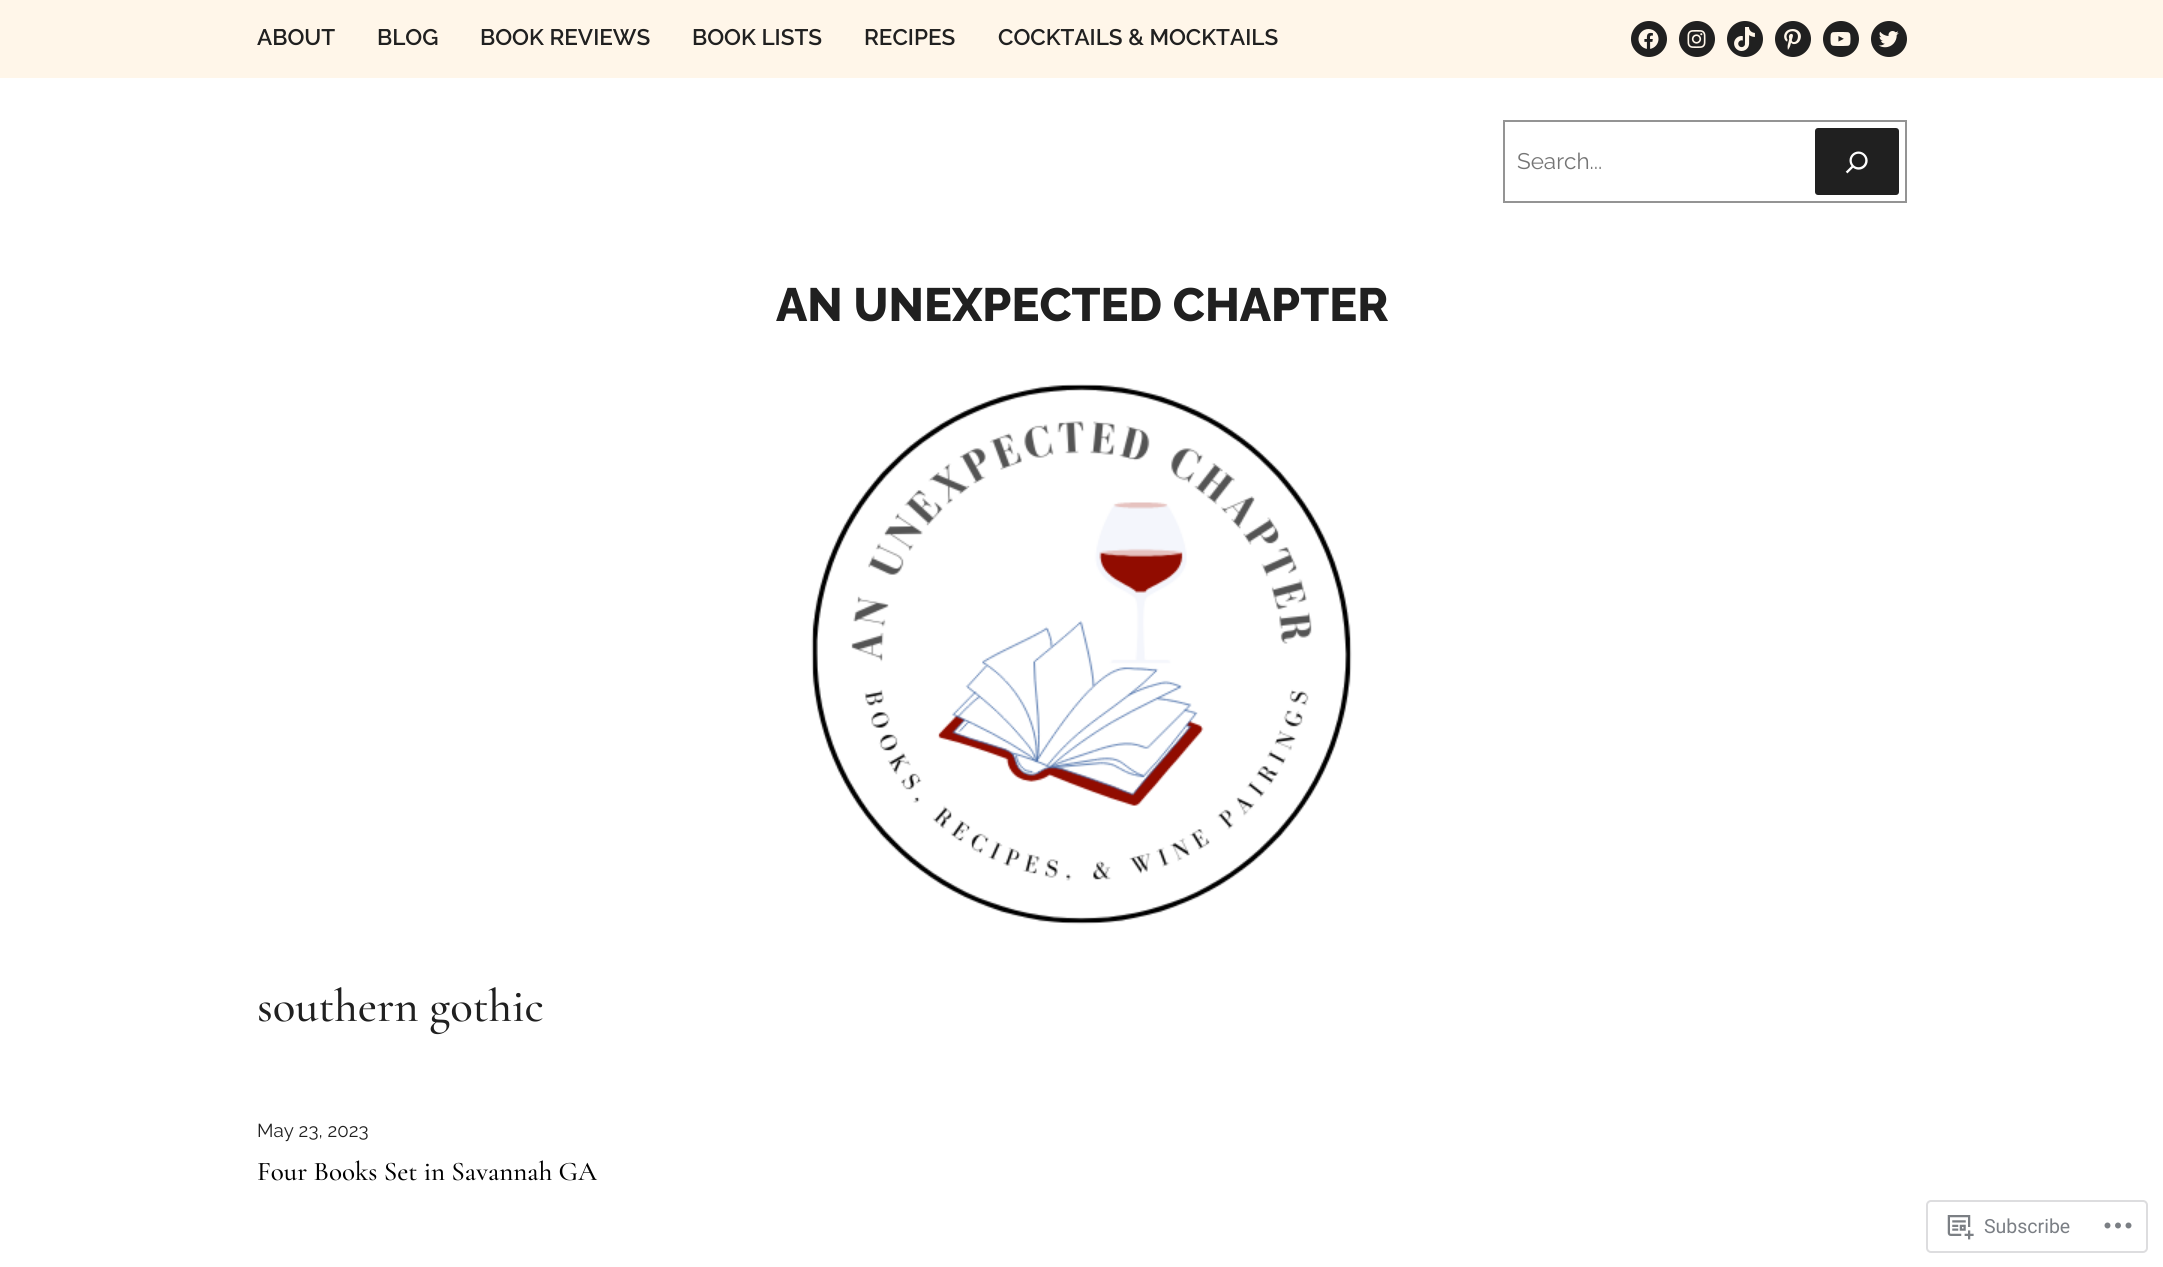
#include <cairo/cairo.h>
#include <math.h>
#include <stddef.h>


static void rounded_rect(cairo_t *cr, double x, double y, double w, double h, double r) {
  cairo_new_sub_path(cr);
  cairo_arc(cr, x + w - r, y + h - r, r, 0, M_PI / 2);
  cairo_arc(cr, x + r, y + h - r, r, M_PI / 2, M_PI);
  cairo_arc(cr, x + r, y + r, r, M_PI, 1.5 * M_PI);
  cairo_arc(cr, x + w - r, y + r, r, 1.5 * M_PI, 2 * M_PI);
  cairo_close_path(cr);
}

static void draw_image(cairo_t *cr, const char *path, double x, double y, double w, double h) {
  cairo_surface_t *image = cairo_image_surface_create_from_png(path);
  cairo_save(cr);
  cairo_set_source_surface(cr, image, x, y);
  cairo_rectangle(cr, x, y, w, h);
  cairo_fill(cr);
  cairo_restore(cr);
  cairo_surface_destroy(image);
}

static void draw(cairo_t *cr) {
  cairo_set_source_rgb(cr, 1, 1, 1);
  cairo_paint(cr);
  cairo_set_source_rgb(cr, 1, 246 / 255.0, 233 / 255.0);
  cairo_rectangle(cr, 0, 0, 2163, 78);
  cairo_fill(cr);
  cairo_set_source_rgb(cr, 32 / 255.0, 32 / 255.0, 32 / 255.0);
  cairo_arc(cr, 1649, 39, 18, 0, 2 * M_PI);
  cairo_fill(cr);
  draw_image(cr, "images/1.png", 1638, 29, 21, 20);
  cairo_arc(cr, 1697, 39, 18, 0, 2 * M_PI);
  cairo_fill(cr);
  draw_image(cr, "images/2.png", 1687, 30, 19, 18);
  cairo_arc(cr, 1745, 39, 18, 0, 2 * M_PI);
  cairo_fill(cr);
  draw_image(cr, "images/3.png", 1734, 27, 21, 24);
  cairo_arc(cr, 1793, 39, 18, 0, 2 * M_PI);
  cairo_fill(cr);
  draw_image(cr, "images/4.png", 1784, 29, 17, 21);
  cairo_arc(cr, 1841, 39, 18, 0, 2 * M_PI);
  cairo_fill(cr);
  draw_image(cr, "images/5.png", 1830, 32, 21, 14);
  cairo_arc(cr, 1889, 39, 18, 0, 2 * M_PI);
  cairo_fill(cr);
  draw_image(cr, "images/6.png", 1878, 31, 21, 17);
  cairo_rectangle(cr, 1504, 121, 402, 81);
  cairo_set_source_rgb(cr, 148 / 255.0, 148 / 255.0, 148 / 255.0);
  cairo_stroke(cr);
  cairo_set_source_rgb(cr, 32 / 255.0, 32 / 255.0, 32 / 255.0);
  rounded_rect(cr, 1815, 128, 84, 67, 3);
  cairo_fill(cr);
  draw_image(cr, "images/7.png", 1845, 151, 23, 23);
  draw_image(cr, "images/8.png", 811, 384, 541, 541);
  rounded_rect(cr, 1927, 1201, 220, 51, 4);
  cairo_set_source_rgb(cr, 221 / 255.0, 221 / 255.0, 223 / 255.0);
  cairo_stroke(cr);
  draw_image(cr, "images/9.png", 1947, 1215, 27, 25);
  draw_image(cr, "images/10.png", 2104, 1222, 28, 7);
  cairo_select_font_face(cr, "Raleway SemiBold", CAIRO_FONT_SLANT_NORMAL, CAIRO_FONT_WEIGHT_NORMAL);
  cairo_set_font_size(cr, 22.5);
  cairo_set_source_rgb(cr, 32 / 255.0, 32 / 255.0, 32 / 255.0);
  cairo_move_to(cr, 257, 45);
  cairo_show_text(cr, "ABOUT");
  cairo_move_to(cr, 377, 45);
  cairo_show_text(cr, "BLOG");
  cairo_move_to(cr, 480, 45);
  cairo_show_text(cr, "BOOK REVIEWS");
  cairo_move_to(cr, 692, 45);
  cairo_show_text(cr, "BOOK LISTS");
  cairo_move_to(cr, 864, 45);
  cairo_show_text(cr, "RECIPES");
  cairo_move_to(cr, 998, 45);
  cairo_show_text(cr, "COCKTAILS & MOCKTAILS");
  cairo_select_font_face(cr, "Raleway", CAIRO_FONT_SLANT_NORMAL, CAIRO_FONT_WEIGHT_NORMAL);
  cairo_set_source_rgb(cr, 117 / 255.0, 117 / 255.0, 117 / 255.0);
  cairo_move_to(cr, 1517, 169);
  cairo_show_text(cr, "Search...");
  cairo_select_font_face(cr, "Raleway ExtraBold", CAIRO_FONT_SLANT_NORMAL, CAIRO_FONT_WEIGHT_NORMAL);
  cairo_set_font_size(cr, 46.7);
  cairo_set_source_rgb(cr, 32 / 255.0, 32 / 255.0, 32 / 255.0);
  cairo_move_to(cr, 776, 321);
  cairo_show_text(cr, "AN UNEXPECTED CHAPTER");
  cairo_select_font_face(cr, "Cormorant Garamond Medium", CAIRO_FONT_SLANT_NORMAL, CAIRO_FONT_WEIGHT_NORMAL);
  cairo_move_to(cr, 257, 1021);
  cairo_show_text(cr, "southern gothic");
  cairo_select_font_face(cr, "Raleway", CAIRO_FONT_SLANT_NORMAL, CAIRO_FONT_WEIGHT_NORMAL);
  cairo_set_font_size(cr, 18.75);
  cairo_move_to(cr, 257, 1137);
  cairo_show_text(cr, "May 23, 2023");
  cairo_select_font_face(cr, "Cormorant Garamond Medium", CAIRO_FONT_SLANT_NORMAL, CAIRO_FONT_WEIGHT_NORMAL);
  cairo_set_font_size(cr, 27);
  cairo_set_source_rgb(cr, 0, 0, 0);
  cairo_move_to(cr, 257, 1180);
  cairo_show_text(cr, "Four Books Set in Savannah GA");
  cairo_select_font_face(cr, "Roboto", CAIRO_FONT_SLANT_NORMAL, CAIRO_FONT_WEIGHT_NORMAL);
  cairo_set_font_size(cr, 19.5);
  cairo_set_source_rgb(cr, 123 / 255.0, 127 / 255.0, 133 / 255.0);
  cairo_move_to(cr, 1984, 1233);
  cairo_show_text(cr, "Subscribe");
}

int main(void) {
  cairo_surface_t *surface = cairo_image_surface_create(CAIRO_FORMAT_RGB24, 2163, 1267);
  cairo_t *cr = cairo_create(surface);
  cairo_font_options_t *options = cairo_font_options_create();
  cairo_font_options_set_hint_metrics(options, CAIRO_HINT_METRICS_OFF);
  cairo_font_options_set_hint_style(options, CAIRO_HINT_STYLE_NONE);
  cairo_set_font_options(cr, options);
  cairo_set_miter_limit(cr, 4);
  draw(cr);
  cairo_surface_write_to_png(surface, "out.png");
  cairo_font_options_destroy(options);
  cairo_destroy(cr);
  cairo_surface_destroy(surface);
  return 0;
}
